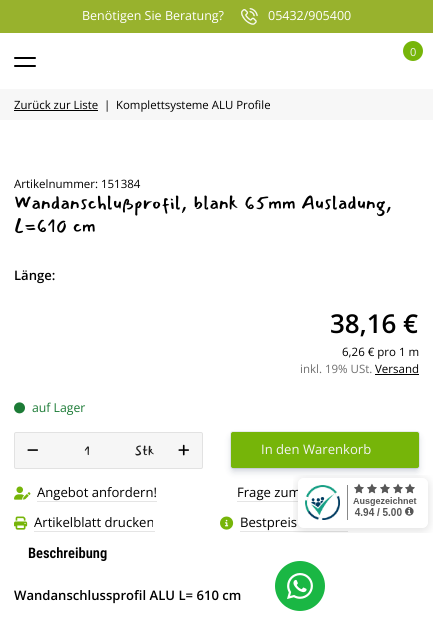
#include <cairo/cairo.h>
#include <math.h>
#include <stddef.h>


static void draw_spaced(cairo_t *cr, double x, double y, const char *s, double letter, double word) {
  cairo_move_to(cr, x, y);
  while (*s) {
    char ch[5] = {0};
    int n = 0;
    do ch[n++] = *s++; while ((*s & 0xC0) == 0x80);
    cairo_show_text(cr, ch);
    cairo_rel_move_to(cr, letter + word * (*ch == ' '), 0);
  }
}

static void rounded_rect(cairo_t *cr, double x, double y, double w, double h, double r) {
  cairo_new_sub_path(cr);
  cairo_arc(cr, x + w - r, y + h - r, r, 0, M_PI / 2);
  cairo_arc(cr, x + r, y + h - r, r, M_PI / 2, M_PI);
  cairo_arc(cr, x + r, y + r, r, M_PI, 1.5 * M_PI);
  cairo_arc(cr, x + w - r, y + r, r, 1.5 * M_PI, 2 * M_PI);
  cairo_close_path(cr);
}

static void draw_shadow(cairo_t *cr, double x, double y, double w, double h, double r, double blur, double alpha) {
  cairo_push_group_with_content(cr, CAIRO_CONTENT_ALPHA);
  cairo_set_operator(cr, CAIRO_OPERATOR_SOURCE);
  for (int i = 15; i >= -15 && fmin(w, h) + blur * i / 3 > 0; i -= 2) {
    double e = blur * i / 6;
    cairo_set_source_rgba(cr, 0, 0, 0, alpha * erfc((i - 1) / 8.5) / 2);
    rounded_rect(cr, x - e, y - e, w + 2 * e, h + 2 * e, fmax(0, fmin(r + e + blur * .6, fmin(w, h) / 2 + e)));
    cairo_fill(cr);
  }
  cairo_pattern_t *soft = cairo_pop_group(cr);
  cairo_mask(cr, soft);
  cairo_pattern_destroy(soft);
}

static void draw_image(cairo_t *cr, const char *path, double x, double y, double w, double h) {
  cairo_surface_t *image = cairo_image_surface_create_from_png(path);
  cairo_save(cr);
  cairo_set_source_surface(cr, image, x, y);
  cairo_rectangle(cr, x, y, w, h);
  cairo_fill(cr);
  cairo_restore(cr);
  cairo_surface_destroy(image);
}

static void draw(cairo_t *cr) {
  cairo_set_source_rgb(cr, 1, 1, 1);
  cairo_paint(cr);
  cairo_set_source_rgb(cr, 152 / 255.0, 178 / 255.0, 45 / 255.0);
  cairo_rectangle(cr, 0, 0, 433, 33);
  cairo_fill(cr);
  draw_image(cr, "images/1.png", 241, 8, 17, 17);
  cairo_set_source_rgb(cr, 118 / 255.0, 181 / 255.0, 9 / 255.0);
  cairo_arc(cr, 413, 51, 10, 0, 2 * M_PI);
  cairo_fill(cr);
  cairo_set_source_rgb(cr, 0, 0, 0);
  rounded_rect(cr, 14, 57, 22, 2, 1);
  cairo_fill(cr);
  rounded_rect(cr, 14, 65, 22, 2, 1);
  cairo_fill(cr);
  cairo_set_source_rgb(cr, 247 / 255.0, 247 / 255.0, 247 / 255.0);
  cairo_rectangle(cr, 0, 89, 433, 31);
  cairo_fill(cr);
  cairo_set_source_rgb(cr, 0, 0, 0);
  cairo_rectangle(cr, 14, 110, 84, 1);
  cairo_fill(cr);
  cairo_rectangle(cr, 375, 374, 44, 1);
  cairo_fill(cr);
  draw_image(cr, "images/2.png", 14, 402, 11, 12);
  cairo_set_source_rgb(cr, 246 / 255.0, 246 / 255.0, 246 / 255.0);
  rounded_rect(cr, 14.5, 432.5, 188, 36, 1.5);
  cairo_fill_preserve(cr);
  cairo_set_source_rgb(cr, 226 / 255.0, 226 / 255.0, 226 / 255.0);
  cairo_set_line_width(cr, 1);
  cairo_stroke(cr);
  draw_image(cr, "images/3.png", 27, 449, 11, 2);
  draw_image(cr, "images/4.png", 178, 444, 11, 12);
  rounded_rect(cr, 230.5, 431.5, 189, 37, 2.5);
  cairo_set_source_rgb(cr, 235 / 255.0, 237 / 255.0, 240 / 255.0);
  cairo_stroke(cr);
  cairo_set_source_rgb(cr, 9 / 255.0, 30 / 255.0, 66 / 255.0);
  draw_shadow(cr, 233, 438, 184, 32, 0, 4, 0.25);
  cairo_set_source_rgb(cr, 118 / 255.0, 181 / 255.0, 9 / 255.0);
  rounded_rect(cr, 231.5, 432.5, 187, 35, 1.5);
  cairo_fill_preserve(cr);
  cairo_stroke(cr);
  draw_image(cr, "images/5.png", 14, 486, 17, 14);
  cairo_set_source_rgb(cr, 229 / 255.0, 229 / 255.0, 229 / 255.0);
  cairo_rectangle(cr, 37, 501, 120, 1);
  cairo_fill(cr);
  cairo_rectangle(cr, 237, 501, 61, 1);
  cairo_fill(cr);
  draw_image(cr, "images/6.png", 14, 516, 14, 14);
  cairo_rectangle(cr, 34, 531, 121, 1);
  cairo_fill(cr);
  draw_image(cr, "images/7.png", 220, 516, 14, 14);
  cairo_rectangle(cr, 240, 531, 108, 1);
  cairo_fill(cr);
  cairo_set_source_rgb(cr, 26 / 255.0, 183 / 255.0, 68 / 255.0);
  cairo_arc(cr, 300, 586, 25, 0, 2 * M_PI);
  cairo_fill(cr);
  draw_image(cr, "images/9.png", 287, 573, 26, 26);
  cairo_select_font_face(cr, "Open Sans", CAIRO_FONT_SLANT_NORMAL, CAIRO_FONT_WEIGHT_NORMAL);
  cairo_set_font_size(cr, 12.5);
  cairo_set_source_rgb(cr, 1, 1, 1);
  cairo_move_to(cr, 82, 20);
  cairo_show_text(cr, "Benötigen Sie Beratung?");
  cairo_move_to(cr, 268, 20);
  cairo_show_text(cr, "05432/905400");
  cairo_set_font_size(cr, 11);
  cairo_set_source_rgb(cr, 242 / 255.0, 242 / 255.0, 242 / 255.0);
  cairo_move_to(cr, 410, 56);
  cairo_show_text(cr, "0");
  cairo_set_font_size(cr, 11.4);
  cairo_set_source_rgb(cr, 0, 0, 0);
  cairo_move_to(cr, 14, 109);
  cairo_show_text(cr, "Zurück zur Liste");
  cairo_move_to(cr, 104, 109);
  cairo_show_text(cr, "|");
  cairo_move_to(cr, 116, 109);
  cairo_show_text(cr, "Komplettsysteme ALU Profile");
  cairo_set_font_size(cr, 11.5);
  cairo_move_to(cr, 14, 188);
  cairo_show_text(cr, "Artikelnummer: 151384");
  cairo_select_font_face(cr, "Mansalva", CAIRO_FONT_SLANT_NORMAL, CAIRO_FONT_WEIGHT_NORMAL);
  cairo_set_font_size(cr, 19.25);
  draw_spaced(cr, 14, 209, "Wandanschlußprofil, blank 65mm", 0, 2);
  draw_spaced(cr, 301, 209, "Ausladung,", 0, 2);
  draw_spaced(cr, 14, 232, "L=610 cm", 0, 1);
  cairo_select_font_face(cr, "Open Sans SemiBold", CAIRO_FONT_SLANT_NORMAL, CAIRO_FONT_WEIGHT_NORMAL);
  cairo_set_font_size(cr, 13.1);
  cairo_move_to(cr, 14, 280);
  cairo_show_text(cr, "Länge:");
  cairo_set_font_size(cr, 26);
  cairo_move_to(cr, 330, 333);
  cairo_show_text(cr, "38,16 €");
  cairo_select_font_face(cr, "Open Sans", CAIRO_FONT_SLANT_NORMAL, CAIRO_FONT_WEIGHT_NORMAL);
  cairo_set_font_size(cr, 11.5);
  cairo_move_to(cr, 342, 356);
  cairo_show_text(cr, "6,26 € pro 1 m");
  cairo_set_source_rgb(cr, 112 / 255.0, 112 / 255.0, 112 / 255.0);
  cairo_move_to(cr, 300, 373);
  cairo_show_text(cr, "inkl. 19% USt.");
  cairo_set_source_rgb(cr, 0, 0, 0);
  cairo_move_to(cr, 375, 373);
  cairo_show_text(cr, "Versand");
  cairo_set_font_size(cr, 12.25);
  cairo_set_source_rgb(cr, 28 / 255.0, 123 / 255.0, 54 / 255.0);
  cairo_move_to(cr, 32, 412);
  cairo_show_text(cr, "auf Lager");
  cairo_select_font_face(cr, "Mansalva", CAIRO_FONT_SLANT_NORMAL, CAIRO_FONT_WEIGHT_NORMAL);
  cairo_set_font_size(cr, 13.1);
  cairo_set_source_rgb(cr, 32 / 255.0, 32 / 255.0, 32 / 255.0);
  cairo_move_to(cr, 84, 455);
  cairo_show_text(cr, "1");
  cairo_move_to(cr, 135, 455);
  cairo_show_text(cr, "Stk");
  cairo_select_font_face(cr, "Open Sans", CAIRO_FONT_SLANT_NORMAL, CAIRO_FONT_WEIGHT_NORMAL);
  cairo_set_source_rgb(cr, 242 / 255.0, 242 / 255.0, 242 / 255.0);
  cairo_move_to(cr, 261, 454);
  cairo_show_text(cr, "In den Warenkorb");
  cairo_set_source_rgb(cr, 0, 0, 0);
  cairo_move_to(cr, 37, 497);
  cairo_show_text(cr, "Angebot anfordern!");
  cairo_move_to(cr, 237, 497);
  cairo_show_text(cr, "Frage zum");
  cairo_move_to(cr, 34, 527);
  cairo_show_text(cr, "Artikelblatt drucken");
  cairo_move_to(cr, 240, 527);
  cairo_show_text(cr, "Bestpreis");
  cairo_select_font_face(cr, "Roboto Condensed SemiBold", CAIRO_FONT_SLANT_NORMAL, CAIRO_FONT_WEIGHT_NORMAL);
  cairo_set_font_size(cr, 14.5);
  cairo_move_to(cr, 28, 558);
  cairo_show_text(cr, "Beschreibung");
  cairo_select_font_face(cr, "Open Sans SemiBold", CAIRO_FONT_SLANT_NORMAL, CAIRO_FONT_WEIGHT_NORMAL);
  cairo_set_font_size(cr, 13.1);
  cairo_move_to(cr, 14, 600);
  cairo_show_text(cr, "Wandanschlussprofil ALU L= 610 cm");
  draw_image(cr, "images/8.png", 293, 475, 140, 58);
}

int main(void) {
  cairo_surface_t *surface = cairo_image_surface_create(CAIRO_FORMAT_RGB24, 433, 631);
  cairo_t *cr = cairo_create(surface);
  cairo_font_options_t *options = cairo_font_options_create();
  cairo_font_options_set_hint_metrics(options, CAIRO_HINT_METRICS_OFF);
  cairo_font_options_set_hint_style(options, CAIRO_HINT_STYLE_NONE);
  cairo_set_font_options(cr, options);
  cairo_set_miter_limit(cr, 4);
  draw(cr);
  cairo_surface_write_to_png(surface, "out.png");
  cairo_font_options_destroy(options);
  cairo_destroy(cr);
  cairo_surface_destroy(surface);
  return 0;
}
